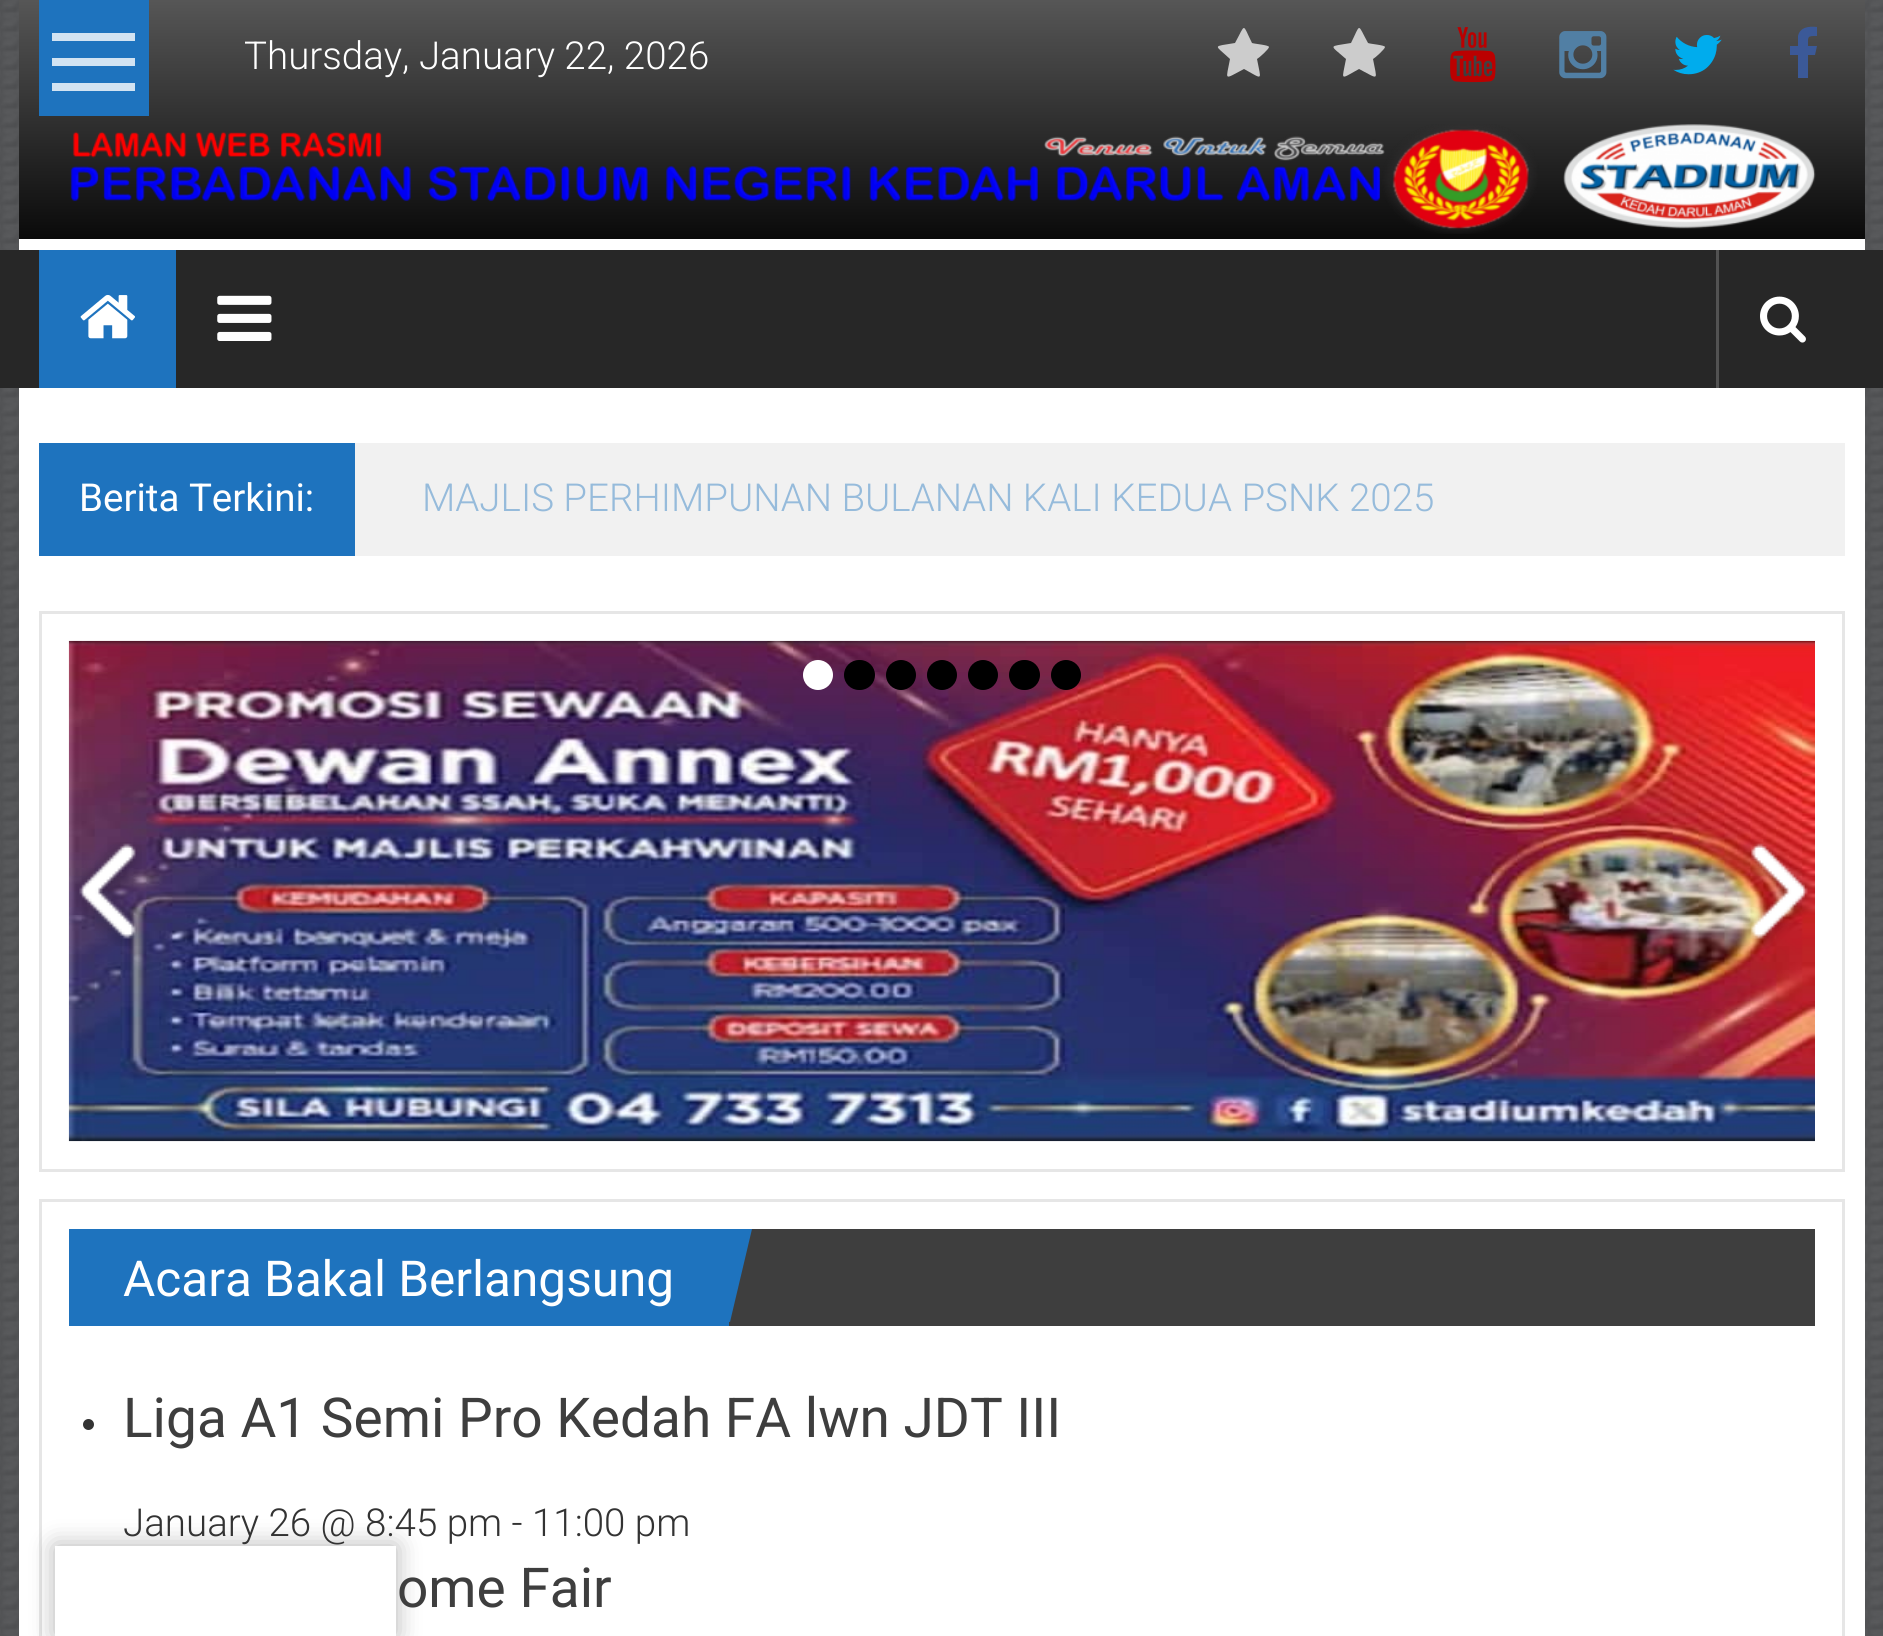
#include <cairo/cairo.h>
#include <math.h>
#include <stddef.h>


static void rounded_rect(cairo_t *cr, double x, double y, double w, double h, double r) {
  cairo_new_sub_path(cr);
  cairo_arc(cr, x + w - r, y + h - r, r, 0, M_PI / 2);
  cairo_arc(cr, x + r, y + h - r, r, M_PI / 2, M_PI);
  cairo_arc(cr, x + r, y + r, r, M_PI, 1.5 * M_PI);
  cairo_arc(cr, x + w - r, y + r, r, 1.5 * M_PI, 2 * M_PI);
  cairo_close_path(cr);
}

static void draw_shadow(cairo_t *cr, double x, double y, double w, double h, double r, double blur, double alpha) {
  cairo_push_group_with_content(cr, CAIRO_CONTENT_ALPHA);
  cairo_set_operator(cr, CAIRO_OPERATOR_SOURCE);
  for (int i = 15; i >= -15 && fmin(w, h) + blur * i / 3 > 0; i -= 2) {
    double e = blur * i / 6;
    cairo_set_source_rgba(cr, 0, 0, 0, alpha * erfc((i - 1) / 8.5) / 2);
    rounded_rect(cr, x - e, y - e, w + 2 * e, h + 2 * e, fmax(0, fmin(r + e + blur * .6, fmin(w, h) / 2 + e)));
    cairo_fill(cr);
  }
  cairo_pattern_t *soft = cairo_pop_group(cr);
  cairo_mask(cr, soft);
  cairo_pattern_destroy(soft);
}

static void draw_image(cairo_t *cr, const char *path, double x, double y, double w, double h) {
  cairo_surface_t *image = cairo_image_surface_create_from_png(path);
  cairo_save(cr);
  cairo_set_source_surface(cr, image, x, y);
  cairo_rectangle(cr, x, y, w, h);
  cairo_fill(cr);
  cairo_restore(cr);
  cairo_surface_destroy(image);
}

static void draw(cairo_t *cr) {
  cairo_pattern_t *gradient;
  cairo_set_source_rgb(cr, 1, 1, 1);
  cairo_paint(cr);
  draw_image(cr, "images/1.png", 0, 0, 1883, 1636);
  cairo_set_source_rgb(cr, 1, 1, 1);
  cairo_rectangle(cr, 19, 239, 1846, 1397);
  cairo_fill(cr);
  gradient = cairo_pattern_create_linear(942, 0, 942, 239);
  cairo_pattern_add_color_stop_rgba(gradient, 0, 86 / 255.0, 86 / 255.0, 86 / 255.0, 1);
  cairo_pattern_add_color_stop_rgba(gradient, 1, 10 / 255.0, 10 / 255.0, 10 / 255.0, 1);
  cairo_set_source(cr, gradient);
  cairo_pattern_destroy(gradient);
  cairo_rectangle(cr, 19, 0, 1846, 239);
  cairo_fill(cr);
  cairo_set_source_rgb(cr, 30 / 255.0, 115 / 255.0, 190 / 255.0);
  cairo_rectangle(cr, 39, 0, 110, 116);
  cairo_fill(cr);
  cairo_set_source_rgb(cr, 210 / 255.0, 227 / 255.0, 242 / 255.0);
  cairo_rectangle(cr, 52, 33, 83, 8);
  cairo_fill(cr);
  cairo_rectangle(cr, 52, 58, 83, 8);
  cairo_fill(cr);
  cairo_rectangle(cr, 52, 83, 83, 8);
  cairo_fill(cr);
  cairo_set_source_rgb(cr, 204 / 255.0, 204 / 255.0, 204 / 255.0);
  cairo_new_path(cr);
  cairo_move_to(cr, 1269, 47);
  cairo_curve_to(cr, 1269, 49, 1259, 58, 1257, 59);
  cairo_curve_to(cr, 1261, 81, 1264, 80, 1244, 69);
  cairo_curve_to(cr, 1223, 80, 1226, 81, 1230, 59);
  cairo_curve_to(cr, 1214, 44, 1212, 47, 1235, 43);
  cairo_curve_to(cr, 1246, 23, 1242, 23, 1252, 43);
  cairo_curve_to(cr, 1255, 44, 1269, 45, 1269, 47);
  cairo_close_path(cr);
  cairo_fill(cr);
  cairo_new_path(cr);
  cairo_move_to(cr, 1385, 47);
  cairo_curve_to(cr, 1385, 49, 1375, 58, 1373, 59);
  cairo_curve_to(cr, 1377, 81, 1380, 80, 1359, 69);
  cairo_curve_to(cr, 1339, 80, 1342, 81, 1346, 59);
  cairo_curve_to(cr, 1329, 44, 1328, 47, 1351, 43);
  cairo_curve_to(cr, 1361, 23, 1357, 23, 1368, 43);
  cairo_curve_to(cr, 1370, 44, 1385, 45, 1385, 47);
  cairo_close_path(cr);
  cairo_fill(cr);
  draw_image(cr, "images/2.png", 1450, 27, 46, 56);
  draw_image(cr, "images/3.png", 1559, 31, 48, 48);
  draw_image(cr, "images/4.png", 1673, 35, 49, 40);
  cairo_set_source_rgb(cr, 59 / 255.0, 89 / 255.0, 152 / 255.0);
  cairo_new_path(cr);
  cairo_move_to(cr, 1817, 27);
  cairo_line_to(cr, 1817, 36);
  cairo_curve_to(cr, 1807, 36, 1808, 36, 1808, 46);
  cairo_line_to(cr, 1817, 46);
  cairo_line_to(cr, 1815, 55);
  cairo_line_to(cr, 1808, 55);
  cairo_line_to(cr, 1808, 78);
  cairo_line_to(cr, 1798, 78);
  cairo_line_to(cr, 1798, 55);
  cairo_line_to(cr, 1790, 55);
  cairo_line_to(cr, 1790, 46);
  cairo_line_to(cr, 1798, 46);
  cairo_line_to(cr, 1798, 36);
  cairo_curve_to(cr, 1800, 27, 1809, 26, 1817, 27);
  cairo_close_path(cr);
  cairo_fill(cr);
  draw_image(cr, "images/5.png", 70, 124, 1746, 110);
  cairo_set_source_rgb(cr, 39 / 255.0, 39 / 255.0, 39 / 255.0);
  cairo_rectangle(cr, 0, 250, 1883, 138);
  cairo_fill(cr);
  cairo_set_source_rgb(cr, 30 / 255.0, 115 / 255.0, 190 / 255.0);
  cairo_rectangle(cr, 39, 250, 137, 138);
  cairo_fill(cr);
  draw_image(cr, "images/6.png", 80, 294, 55, 45);
  draw_image(cr, "images/7.png", 217, 295, 55, 46);
  cairo_set_source_rgb(cr, 82 / 255.0, 82 / 255.0, 82 / 255.0);
  cairo_rectangle(cr, 1716, 250, 3, 138);
  cairo_fill(cr);
  draw_image(cr, "images/8.png", 1760, 296, 46, 47);
  cairo_set_source_rgb(cr, 241 / 255.0, 241 / 255.0, 241 / 255.0);
  cairo_rectangle(cr, 355, 443, 1490, 113);
  cairo_fill(cr);
  cairo_set_source_rgb(cr, 30 / 255.0, 115 / 255.0, 190 / 255.0);
  cairo_rectangle(cr, 39, 443, 316, 113);
  cairo_fill(cr);
  cairo_rectangle(cr, 40.5, 612.5, 1803, 558);
  cairo_set_source_rgb(cr, 230 / 255.0, 230 / 255.0, 230 / 255.0);
  cairo_set_line_width(cr, 3);
  cairo_stroke(cr);
  draw_image(cr, "images/9.png", 68, 640, 1747, 502);
  cairo_set_source_rgb(cr, 1, 1, 1);
  cairo_arc(cr, 818, 675, 15, 0, 2 * M_PI);
  cairo_fill(cr);
  cairo_set_source_rgb(cr, 0, 0, 0);
  rounded_rect(cr, 844, 660, 31, 30, 15);
  cairo_fill(cr);
  cairo_arc(cr, 901, 675, 15, 0, 2 * M_PI);
  cairo_fill(cr);
  cairo_arc(cr, 942, 675, 15, 0, 2 * M_PI);
  cairo_fill(cr);
  cairo_arc(cr, 983, 675, 15, 0, 2 * M_PI);
  cairo_fill(cr);
  rounded_rect(cr, 1009, 660, 31, 30, 15);
  cairo_fill(cr);
  cairo_arc(cr, 1066, 675, 15, 0, 2 * M_PI);
  cairo_fill(cr);
  draw_image(cr, "images/10.png", 74, 842, 68, 104);
  draw_image(cr, "images/11.png", 1743, 839, 72, 110);
  cairo_rectangle(cr, 40.5, 1200.5, 1803, 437);
  cairo_set_source_rgb(cr, 230 / 255.0, 230 / 255.0, 230 / 255.0);
  cairo_stroke(cr);
  cairo_set_source_rgb(cr, 62 / 255.0, 62 / 255.0, 62 / 255.0);
  cairo_rectangle(cr, 729, 1229, 1086, 97);
  cairo_fill(cr);
  cairo_set_source_rgb(cr, 30 / 255.0, 115 / 255.0, 190 / 255.0);
  cairo_rectangle(cr, 69, 1229, 660, 97);
  cairo_fill(cr);
  cairo_save(cr);
  cairo_rectangle(cr, 69, 1229, 1746, 97);
  cairo_clip(cr);
  cairo_new_path(cr);
  cairo_move_to(cr, 752, 1229);
  cairo_line_to(cr, 730, 1322);
  cairo_line_to(cr, 637, 1301);
  cairo_line_to(cr, 658, 1207);
  cairo_close_path(cr);
  cairo_fill(cr);
  cairo_restore(cr);
  cairo_set_source_rgb(cr, 51 / 255.0, 51 / 255.0, 51 / 255.0);
  cairo_arc(cr, 88.5, 1424.5, 5.5, 0, 2 * M_PI);
  cairo_fill(cr);
  cairo_set_source_rgb(cr, 0, 0, 0);
  draw_shadow(cr, 55, 1546, 341, 90, 0, 12.5, 0.3);
  cairo_set_source_rgb(cr, 1, 1, 1);
  cairo_rectangle(cr, 55, 1546, 341, 90);
  cairo_fill(cr);
  cairo_select_font_face(cr, "Roboto Light", CAIRO_FONT_SLANT_NORMAL, CAIRO_FONT_WEIGHT_NORMAL);
  cairo_set_font_size(cr, 38.5);
  cairo_move_to(cr, 244, 69);
  cairo_show_text(cr, "Thursday, January 22, 2026");
  cairo_select_font_face(cr, "Roboto", CAIRO_FONT_SLANT_NORMAL, CAIRO_FONT_WEIGHT_NORMAL);
  cairo_move_to(cr, 79, 511);
  cairo_show_text(cr, "Berita Terkini:");
  cairo_select_font_face(cr, "Roboto Light", CAIRO_FONT_SLANT_NORMAL, CAIRO_FONT_WEIGHT_NORMAL);
  cairo_set_source_rgb(cr, 150 / 255.0, 187 / 255.0, 219 / 255.0);
  cairo_move_to(cr, 422, 511);
  cairo_show_text(cr, "MAJLIS PERHIMPUNAN BULANAN KALI KEDUA PSNK 2025");
  cairo_select_font_face(cr, "Roboto", CAIRO_FONT_SLANT_NORMAL, CAIRO_FONT_WEIGHT_NORMAL);
  cairo_set_font_size(cr, 49.5);
  cairo_set_source_rgb(cr, 1, 1, 1);
  cairo_move_to(cr, 123, 1296);
  cairo_show_text(cr, "Acara Bakal Berlangsung");
  cairo_set_font_size(cr, 55);
  cairo_set_source_rgb(cr, 62 / 255.0, 62 / 255.0, 62 / 255.0);
  cairo_move_to(cr, 123, 1437);
  cairo_show_text(cr, "Liga A1 Semi Pro Kedah FA lwn JDT III");
  cairo_select_font_face(cr, "Roboto Light", CAIRO_FONT_SLANT_NORMAL, CAIRO_FONT_WEIGHT_NORMAL);
  cairo_set_font_size(cr, 38.5);
  cairo_set_source_rgb(cr, 51 / 255.0, 51 / 255.0, 51 / 255.0);
  cairo_move_to(cr, 123, 1536);
  cairo_show_text(cr, "January 26 @ 8:45 pm - 11:00 pm");
  cairo_select_font_face(cr, "Roboto", CAIRO_FONT_SLANT_NORMAL, CAIRO_FONT_WEIGHT_NORMAL);
  cairo_set_font_size(cr, 55);
  cairo_set_source_rgb(cr, 62 / 255.0, 62 / 255.0, 62 / 255.0);
  cairo_move_to(cr, 397, 1607);
  cairo_show_text(cr, "ome Fair");
}

int main(void) {
  cairo_surface_t *surface = cairo_image_surface_create(CAIRO_FORMAT_RGB24, 1883, 1636);
  cairo_t *cr = cairo_create(surface);
  cairo_font_options_t *options = cairo_font_options_create();
  cairo_font_options_set_hint_metrics(options, CAIRO_HINT_METRICS_OFF);
  cairo_font_options_set_hint_style(options, CAIRO_HINT_STYLE_NONE);
  cairo_set_font_options(cr, options);
  cairo_set_miter_limit(cr, 4);
  draw(cr);
  cairo_surface_write_to_png(surface, "out.png");
  cairo_font_options_destroy(options);
  cairo_destroy(cr);
  cairo_surface_destroy(surface);
  return 0;
}
